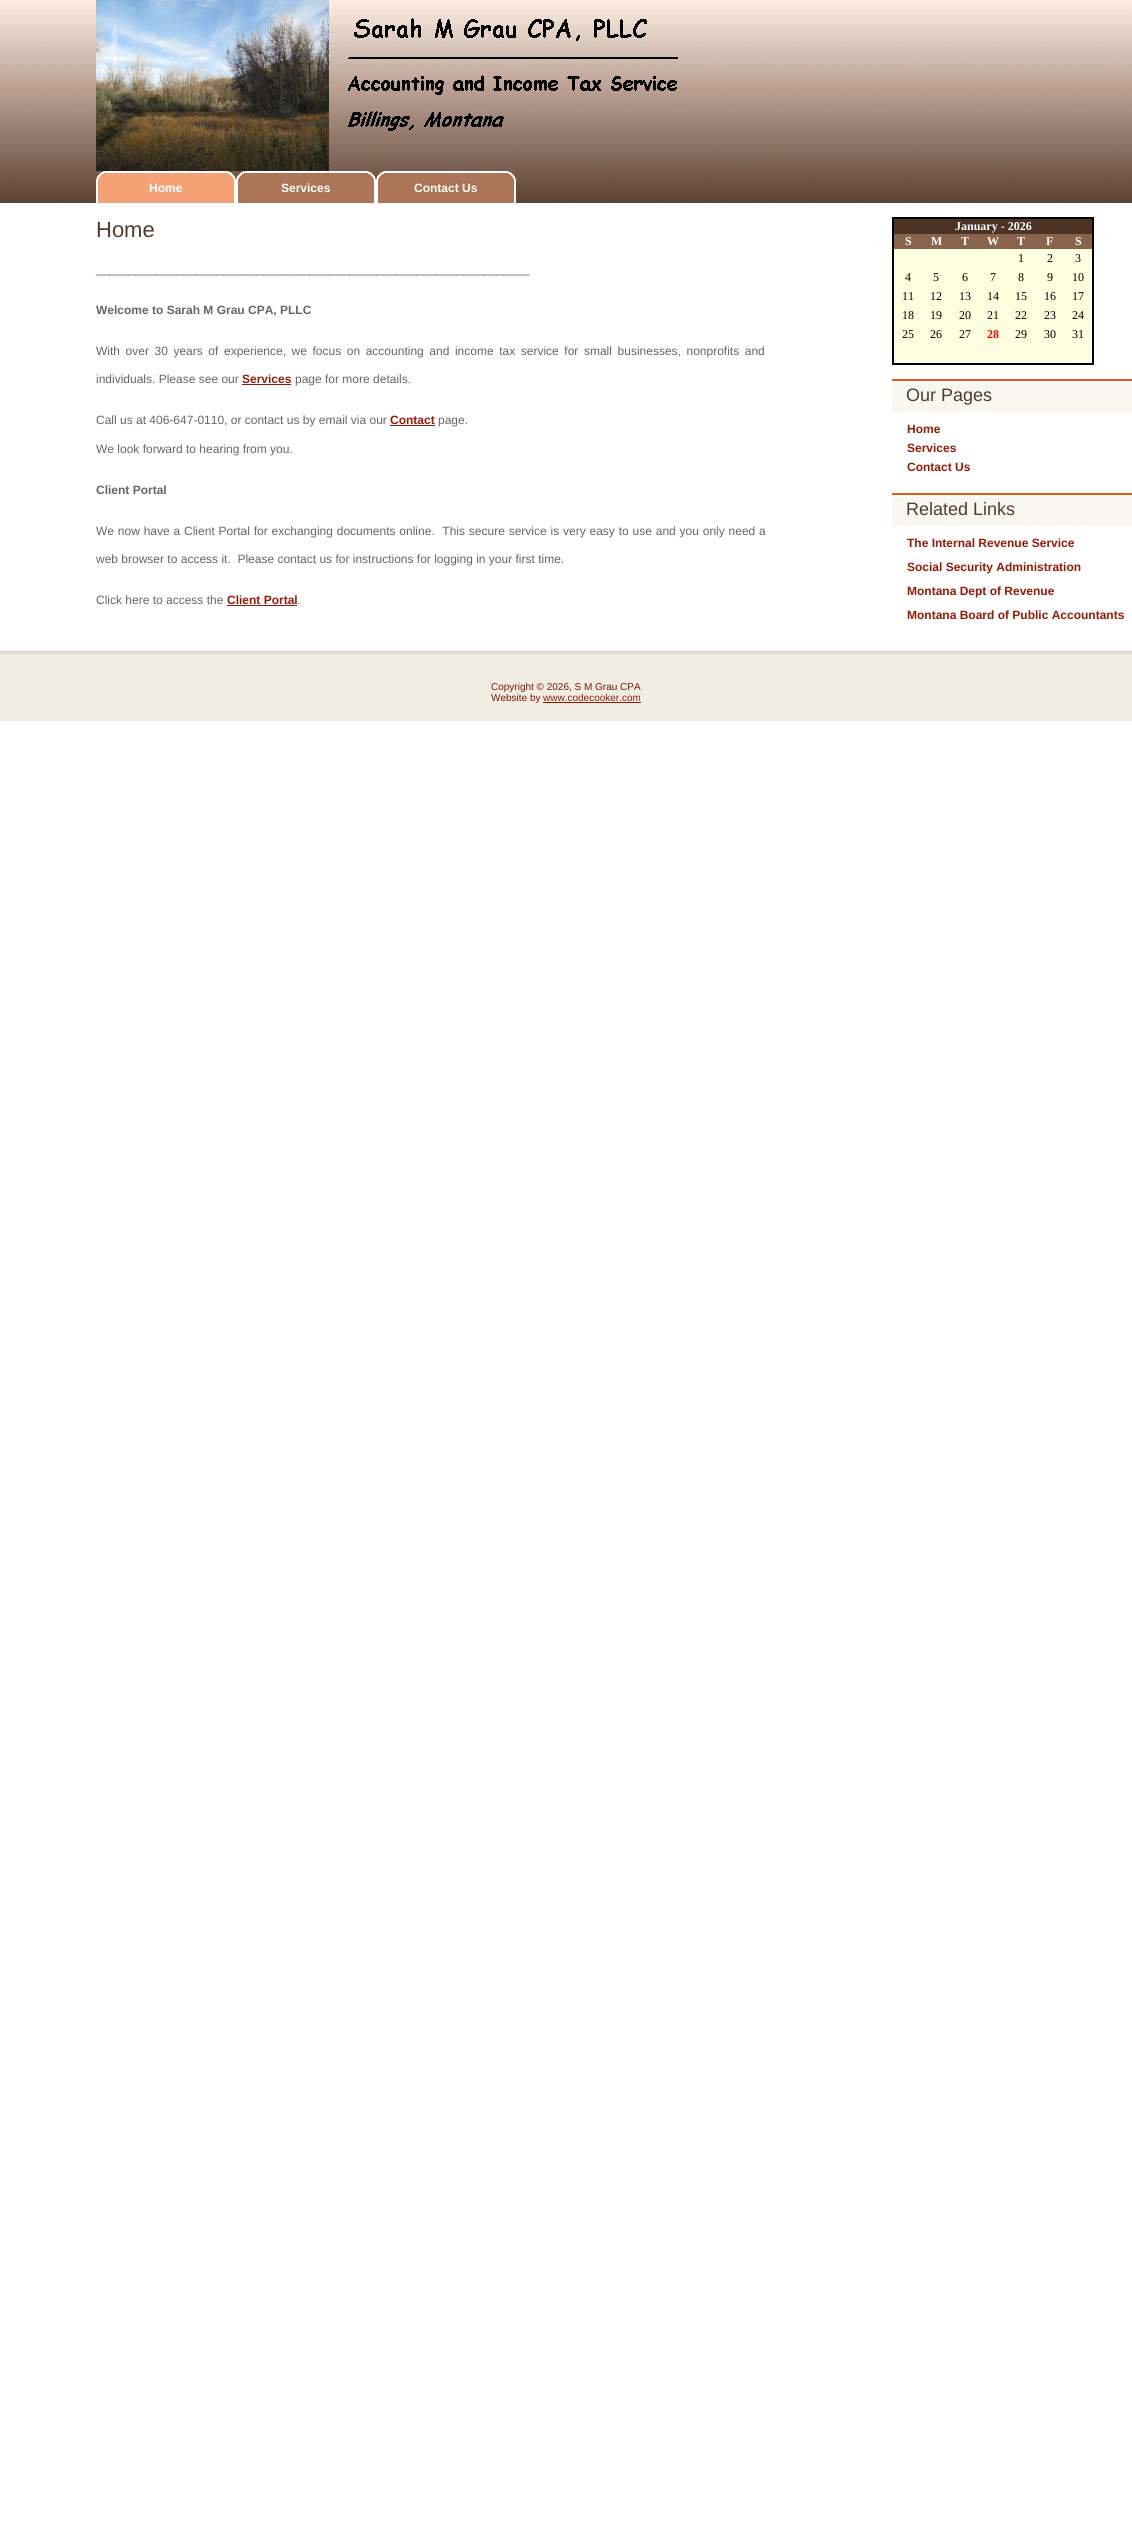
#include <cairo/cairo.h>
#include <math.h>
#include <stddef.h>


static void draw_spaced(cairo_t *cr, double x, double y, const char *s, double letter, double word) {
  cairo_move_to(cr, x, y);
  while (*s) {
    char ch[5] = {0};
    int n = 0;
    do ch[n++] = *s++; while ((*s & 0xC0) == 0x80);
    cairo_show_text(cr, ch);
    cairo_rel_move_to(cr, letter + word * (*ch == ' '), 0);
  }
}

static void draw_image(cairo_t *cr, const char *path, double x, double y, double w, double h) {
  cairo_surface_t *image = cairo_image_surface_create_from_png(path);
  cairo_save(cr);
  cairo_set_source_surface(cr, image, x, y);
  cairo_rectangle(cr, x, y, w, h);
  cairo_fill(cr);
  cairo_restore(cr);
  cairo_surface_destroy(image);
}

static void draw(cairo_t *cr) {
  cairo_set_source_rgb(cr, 1, 1, 1);
  cairo_paint(cr);
  draw_image(cr, "images/1.png", 0, 0, 1132, 203);
  draw_image(cr, "images/2.png", 96, 0, 233, 171);
  draw_image(cr, "images/3.png", 348, 18, 330, 113);
  draw_image(cr, "images/4.png", 96, 171, 140, 32);
  draw_image(cr, "images/5.png", 236, 171, 140, 32);
  draw_image(cr, "images/6.png", 376, 171, 140, 32);
  cairo_set_source_rgb(cr, 150 / 255.0, 26 / 255.0, 6 / 255.0);
  cairo_rectangle(cr, 242, 384, 49, 1);
  cairo_fill(cr);
  cairo_rectangle(cr, 390, 425, 45, 1);
  cairo_fill(cr);
  cairo_rectangle(cr, 227, 605, 70, 1);
  cairo_fill(cr);
  cairo_rectangle(cr, 892.5, 217.5, 201, 147);
  cairo_set_source_rgb(cr, 0, 0, 0);
  cairo_set_line_width(cr, 1);
  cairo_stroke(cr);
  cairo_rectangle(cr, 893.5, 218.5, 199, 145);
  cairo_stroke(cr);
  cairo_set_source_rgb(cr, 76 / 255.0, 51 / 255.0, 38 / 255.0);
  cairo_rectangle(cr, 894, 219, 198, 15);
  cairo_fill(cr);
  cairo_set_source_rgb(cr, 138 / 255.0, 99 / 255.0, 77 / 255.0);
  cairo_rectangle(cr, 894, 234, 198, 15);
  cairo_fill(cr);
  cairo_set_source_rgb(cr, 1, 1, 224 / 255.0);
  cairo_rectangle(cr, 894, 249, 198, 19);
  cairo_fill(cr);
  cairo_rectangle(cr, 894, 268, 198, 19);
  cairo_fill(cr);
  cairo_rectangle(cr, 894, 287, 198, 19);
  cairo_fill(cr);
  cairo_rectangle(cr, 894, 306, 198, 19);
  cairo_fill(cr);
  cairo_rectangle(cr, 894, 325, 198, 19);
  cairo_fill(cr);
  cairo_rectangle(cr, 894, 344, 198, 19);
  cairo_fill(cr);
  draw_image(cr, "images/7.png", 892, 379, 240, 33);
  draw_image(cr, "images/7.png", 892, 493, 240, 33);
  draw_image(cr, "images/8.png", 0, 651, 1132, 70);
  cairo_set_source_rgb(cr, 150 / 255.0, 26 / 255.0, 6 / 255.0);
  cairo_rectangle(cr, 543, 702, 98, 1);
  cairo_fill(cr);
  cairo_select_font_face(cr, "Liberation Sans", CAIRO_FONT_SLANT_NORMAL, CAIRO_FONT_WEIGHT_BOLD);
  cairo_set_font_size(cr, 12);
  cairo_set_source_rgb(cr, 1, 1, 1);
  cairo_move_to(cr, 149, 192);
  cairo_show_text(cr, "Home");
  cairo_move_to(cr, 281, 192);
  cairo_show_text(cr, "Services");
  cairo_move_to(cr, 414, 192);
  cairo_show_text(cr, "Contact Us");
  cairo_select_font_face(cr, "Liberation Sans", CAIRO_FONT_SLANT_NORMAL, CAIRO_FONT_WEIGHT_NORMAL);
  cairo_set_font_size(cr, 22);
  cairo_set_source_rgb(cr, 84 / 255.0, 58 / 255.0, 44 / 255.0);
  cairo_move_to(cr, 96, 237);
  cairo_show_text(cr, "Home");
  cairo_set_font_size(cr, 12);
  cairo_set_source_rgb(cr, 102 / 255.0, 102 / 255.0, 94 / 255.0);
  cairo_move_to(cr, 96, 273);
  cairo_show_text(cr, "_________________________________________________________________");
  cairo_select_font_face(cr, "Liberation Sans", CAIRO_FONT_SLANT_NORMAL, CAIRO_FONT_WEIGHT_BOLD);
  cairo_move_to(cr, 96, 314);
  cairo_show_text(cr, "Welcome to Sarah M Grau CPA, PLLC");
  cairo_select_font_face(cr, "Liberation Sans", CAIRO_FONT_SLANT_NORMAL, CAIRO_FONT_WEIGHT_NORMAL);
  draw_spaced(cr, 96, 355, "With over 30 years of experience, we focus on accounting and income tax service for small businesses, nonprofits and", 0, 2.25);
  cairo_move_to(cr, 96, 383);
  cairo_show_text(cr, "individuals. Please see our");
  cairo_select_font_face(cr, "Liberation Sans", CAIRO_FONT_SLANT_NORMAL, CAIRO_FONT_WEIGHT_BOLD);
  cairo_set_source_rgb(cr, 150 / 255.0, 26 / 255.0, 6 / 255.0);
  cairo_move_to(cr, 242, 383);
  cairo_show_text(cr, "Services");
  cairo_select_font_face(cr, "Liberation Sans", CAIRO_FONT_SLANT_NORMAL, CAIRO_FONT_WEIGHT_NORMAL);
  cairo_set_source_rgb(cr, 102 / 255.0, 102 / 255.0, 94 / 255.0);
  cairo_move_to(cr, 295, 383);
  cairo_show_text(cr, "page for more details.");
  cairo_move_to(cr, 96, 424);
  cairo_show_text(cr, "Call us at 406-647-0110, or contact us by email via our");
  cairo_select_font_face(cr, "Liberation Sans", CAIRO_FONT_SLANT_NORMAL, CAIRO_FONT_WEIGHT_BOLD);
  cairo_set_source_rgb(cr, 150 / 255.0, 26 / 255.0, 6 / 255.0);
  cairo_move_to(cr, 390, 424);
  cairo_show_text(cr, "Contact");
  cairo_select_font_face(cr, "Liberation Sans", CAIRO_FONT_SLANT_NORMAL, CAIRO_FONT_WEIGHT_NORMAL);
  cairo_set_source_rgb(cr, 102 / 255.0, 102 / 255.0, 94 / 255.0);
  cairo_move_to(cr, 438, 424);
  cairo_show_text(cr, "page.");
  cairo_move_to(cr, 96, 453);
  cairo_show_text(cr, "We look forward to hearing from you.");
  cairo_select_font_face(cr, "Liberation Sans", CAIRO_FONT_SLANT_NORMAL, CAIRO_FONT_WEIGHT_BOLD);
  cairo_move_to(cr, 96, 494);
  cairo_show_text(cr, "Client Portal");
  cairo_select_font_face(cr, "Liberation Sans", CAIRO_FONT_SLANT_NORMAL, CAIRO_FONT_WEIGHT_NORMAL);
  draw_spaced(cr, 96, 535, "We now have a Client Portal for exchanging documents online.  This secure service is very easy to use and you only need a", 0, 0.5);
  cairo_move_to(cr, 96, 563);
  cairo_show_text(cr, "web browser to access it.  Please contact us for instructions for logging in your first time.");
  cairo_move_to(cr, 96, 604);
  cairo_show_text(cr, "Click here to access the");
  cairo_select_font_face(cr, "Liberation Sans", CAIRO_FONT_SLANT_NORMAL, CAIRO_FONT_WEIGHT_BOLD);
  cairo_set_source_rgb(cr, 150 / 255.0, 26 / 255.0, 6 / 255.0);
  cairo_move_to(cr, 227, 604);
  cairo_show_text(cr, "Client Portal");
  cairo_select_font_face(cr, "Liberation Sans", CAIRO_FONT_SLANT_NORMAL, CAIRO_FONT_WEIGHT_NORMAL);
  cairo_set_source_rgb(cr, 102 / 255.0, 102 / 255.0, 94 / 255.0);
  cairo_move_to(cr, 297, 604);
  cairo_show_text(cr, ".");
  cairo_select_font_face(cr, "Liberation Serif", CAIRO_FONT_SLANT_NORMAL, CAIRO_FONT_WEIGHT_BOLD);
  cairo_set_source_rgb(cr, 1, 1, 1);
  cairo_move_to(cr, 955, 230);
  cairo_show_text(cr, "January - 2026");
  cairo_move_to(cr, 905, 245);
  cairo_show_text(cr, "S");
  cairo_move_to(cr, 931, 245);
  cairo_show_text(cr, "M");
  cairo_move_to(cr, 961, 245);
  cairo_show_text(cr, "T");
  cairo_move_to(cr, 987, 245);
  cairo_show_text(cr, "W");
  cairo_move_to(cr, 1017, 245);
  cairo_show_text(cr, "T");
  cairo_move_to(cr, 1046, 245);
  cairo_show_text(cr, "F");
  cairo_move_to(cr, 1075, 245);
  cairo_show_text(cr, "S");
  cairo_select_font_face(cr, "Liberation Serif", CAIRO_FONT_SLANT_NORMAL, CAIRO_FONT_WEIGHT_NORMAL);
  cairo_set_source_rgb(cr, 0, 0, 0);
  cairo_move_to(cr, 1018, 262);
  cairo_show_text(cr, "1");
  cairo_move_to(cr, 1047, 262);
  cairo_show_text(cr, "2");
  cairo_move_to(cr, 1075, 262);
  cairo_show_text(cr, "3");
  cairo_move_to(cr, 905, 281);
  cairo_show_text(cr, "4");
  cairo_move_to(cr, 933, 281);
  cairo_show_text(cr, "5");
  cairo_move_to(cr, 962, 281);
  cairo_show_text(cr, "6");
  cairo_move_to(cr, 990, 281);
  cairo_show_text(cr, "7");
  cairo_move_to(cr, 1018, 281);
  cairo_show_text(cr, "8");
  cairo_move_to(cr, 1047, 281);
  cairo_show_text(cr, "9");
  cairo_move_to(cr, 1072, 281);
  cairo_show_text(cr, "10");
  cairo_move_to(cr, 902, 300);
  cairo_show_text(cr, "11");
  cairo_move_to(cr, 930, 300);
  cairo_show_text(cr, "12");
  cairo_move_to(cr, 959, 300);
  cairo_show_text(cr, "13");
  cairo_move_to(cr, 987, 300);
  cairo_show_text(cr, "14");
  cairo_move_to(cr, 1015, 300);
  cairo_show_text(cr, "15");
  cairo_move_to(cr, 1044, 300);
  cairo_show_text(cr, "16");
  cairo_move_to(cr, 1072, 300);
  cairo_show_text(cr, "17");
  cairo_move_to(cr, 902, 319);
  cairo_show_text(cr, "18");
  cairo_move_to(cr, 930, 319);
  cairo_show_text(cr, "19");
  cairo_move_to(cr, 959, 319);
  cairo_show_text(cr, "20");
  cairo_move_to(cr, 987, 319);
  cairo_show_text(cr, "21");
  cairo_move_to(cr, 1015, 319);
  cairo_show_text(cr, "22");
  cairo_move_to(cr, 1044, 319);
  cairo_show_text(cr, "23");
  cairo_move_to(cr, 1072, 319);
  cairo_show_text(cr, "24");
  cairo_move_to(cr, 902, 338);
  cairo_show_text(cr, "25");
  cairo_move_to(cr, 930, 338);
  cairo_show_text(cr, "26");
  cairo_move_to(cr, 959, 338);
  cairo_show_text(cr, "27");
  cairo_select_font_face(cr, "Liberation Serif", CAIRO_FONT_SLANT_NORMAL, CAIRO_FONT_WEIGHT_BOLD);
  cairo_set_source_rgb(cr, 1, 0, 0);
  cairo_move_to(cr, 987, 338);
  cairo_show_text(cr, "28");
  cairo_select_font_face(cr, "Liberation Serif", CAIRO_FONT_SLANT_NORMAL, CAIRO_FONT_WEIGHT_NORMAL);
  cairo_set_source_rgb(cr, 0, 0, 0);
  cairo_move_to(cr, 1015, 338);
  cairo_show_text(cr, "29");
  cairo_move_to(cr, 1044, 338);
  cairo_show_text(cr, "30");
  cairo_move_to(cr, 1072, 338);
  cairo_show_text(cr, "31");
  cairo_select_font_face(cr, "Liberation Sans", CAIRO_FONT_SLANT_NORMAL, CAIRO_FONT_WEIGHT_NORMAL);
  cairo_set_font_size(cr, 18);
  cairo_set_source_rgb(cr, 84 / 255.0, 58 / 255.0, 44 / 255.0);
  cairo_move_to(cr, 906, 401);
  cairo_show_text(cr, "Our Pages");
  cairo_select_font_face(cr, "Liberation Sans", CAIRO_FONT_SLANT_NORMAL, CAIRO_FONT_WEIGHT_BOLD);
  cairo_set_font_size(cr, 12);
  cairo_set_source_rgb(cr, 150 / 255.0, 26 / 255.0, 6 / 255.0);
  cairo_move_to(cr, 907, 433);
  cairo_show_text(cr, "Home");
  cairo_move_to(cr, 907, 452);
  cairo_show_text(cr, "Services");
  cairo_move_to(cr, 907, 471);
  cairo_show_text(cr, "Contact Us");
  cairo_select_font_face(cr, "Liberation Sans", CAIRO_FONT_SLANT_NORMAL, CAIRO_FONT_WEIGHT_NORMAL);
  cairo_set_font_size(cr, 18);
  cairo_set_source_rgb(cr, 84 / 255.0, 58 / 255.0, 44 / 255.0);
  cairo_move_to(cr, 906, 515);
  cairo_show_text(cr, "Related Links");
  cairo_select_font_face(cr, "Liberation Sans", CAIRO_FONT_SLANT_NORMAL, CAIRO_FONT_WEIGHT_BOLD);
  cairo_set_font_size(cr, 12);
  cairo_set_source_rgb(cr, 150 / 255.0, 26 / 255.0, 6 / 255.0);
  cairo_move_to(cr, 907, 547);
  cairo_show_text(cr, "The Internal Revenue Service");
  cairo_move_to(cr, 907, 571);
  cairo_show_text(cr, "Social Security Administration");
  cairo_move_to(cr, 907, 595);
  cairo_show_text(cr, "Montana Dept of Revenue");
  cairo_move_to(cr, 907, 619);
  cairo_show_text(cr, "Montana Board of Public Accountants");
  cairo_select_font_face(cr, "Liberation Sans", CAIRO_FONT_SLANT_NORMAL, CAIRO_FONT_WEIGHT_NORMAL);
  cairo_set_font_size(cr, 10);
  cairo_set_source_rgb(cr, 123 / 255.0, 22 / 255.0, 5 / 255.0);
  cairo_move_to(cr, 491, 690);
  cairo_show_text(cr, "Copyright © 2026, S M Grau CPA");
  cairo_move_to(cr, 491, 701);
  cairo_show_text(cr, "Website by");
  cairo_set_source_rgb(cr, 150 / 255.0, 26 / 255.0, 6 / 255.0);
  cairo_move_to(cr, 543, 701);
  cairo_show_text(cr, "www.codecooker.com");
}

int main(void) {
  cairo_surface_t *surface = cairo_image_surface_create(CAIRO_FORMAT_RGB24, 1132, 2540);
  cairo_t *cr = cairo_create(surface);
  cairo_font_options_t *options = cairo_font_options_create();
  cairo_font_options_set_hint_metrics(options, CAIRO_HINT_METRICS_OFF);
  cairo_font_options_set_hint_style(options, CAIRO_HINT_STYLE_NONE);
  cairo_set_font_options(cr, options);
  cairo_set_miter_limit(cr, 4);
  draw(cr);
  cairo_surface_write_to_png(surface, "out.png");
  cairo_font_options_destroy(options);
  cairo_destroy(cr);
  cairo_surface_destroy(surface);
  return 0;
}
